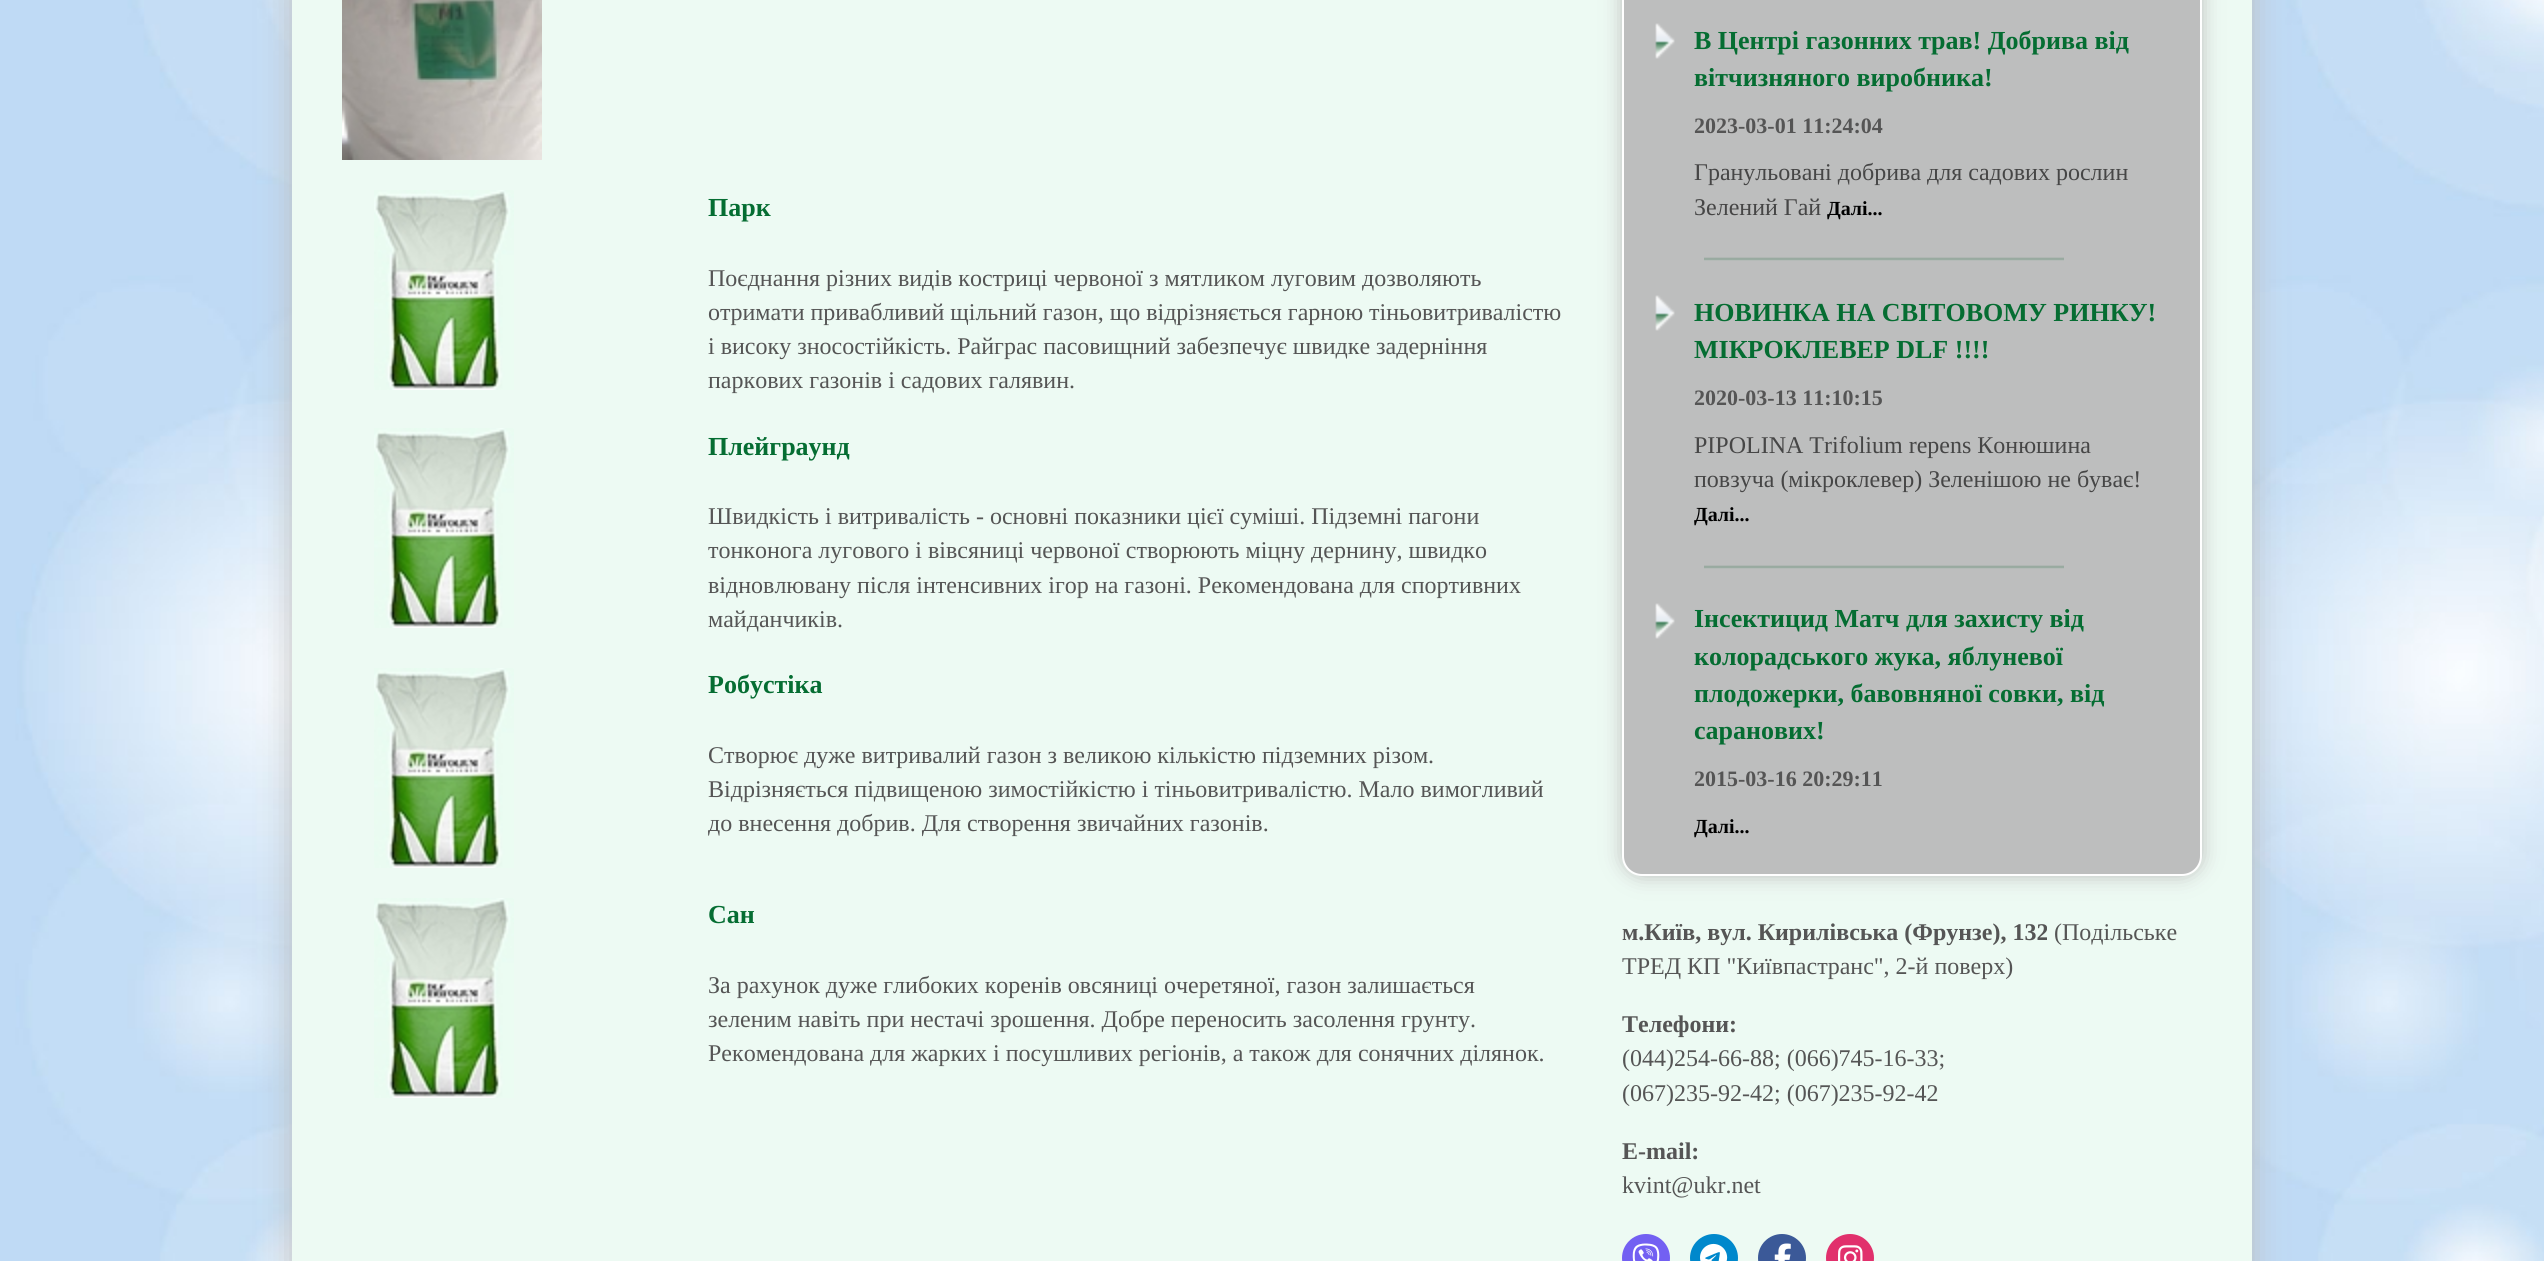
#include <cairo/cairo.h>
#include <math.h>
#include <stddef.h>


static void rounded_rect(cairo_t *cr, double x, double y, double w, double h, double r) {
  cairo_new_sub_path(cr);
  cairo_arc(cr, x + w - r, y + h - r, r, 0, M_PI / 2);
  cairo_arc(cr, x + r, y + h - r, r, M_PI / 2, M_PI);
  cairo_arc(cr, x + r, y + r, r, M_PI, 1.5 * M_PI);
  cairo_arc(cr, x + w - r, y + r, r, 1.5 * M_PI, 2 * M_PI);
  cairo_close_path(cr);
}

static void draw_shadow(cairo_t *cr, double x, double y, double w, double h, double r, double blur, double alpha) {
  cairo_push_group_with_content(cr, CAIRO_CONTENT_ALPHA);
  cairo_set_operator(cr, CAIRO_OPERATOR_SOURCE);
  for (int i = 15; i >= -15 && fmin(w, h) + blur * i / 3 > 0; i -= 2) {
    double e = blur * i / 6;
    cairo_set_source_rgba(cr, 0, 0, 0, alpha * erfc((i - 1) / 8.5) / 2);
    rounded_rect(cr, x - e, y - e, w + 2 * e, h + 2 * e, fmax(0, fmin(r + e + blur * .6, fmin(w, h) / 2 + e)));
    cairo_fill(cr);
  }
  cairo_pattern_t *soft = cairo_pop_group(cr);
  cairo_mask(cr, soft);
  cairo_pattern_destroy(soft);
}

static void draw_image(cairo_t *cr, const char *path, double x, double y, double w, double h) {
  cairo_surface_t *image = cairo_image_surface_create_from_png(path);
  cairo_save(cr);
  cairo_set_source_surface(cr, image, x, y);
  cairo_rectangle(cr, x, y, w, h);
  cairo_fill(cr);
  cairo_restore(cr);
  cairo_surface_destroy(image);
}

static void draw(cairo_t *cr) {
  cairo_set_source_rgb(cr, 1, 1, 1);
  cairo_paint(cr);
  draw_image(cr, "images/1.png", 0, 0, 2544, 1261);
  cairo_set_source_rgb(cr, 190 / 255.0, 190 / 255.0, 190 / 255.0);
  draw_shadow(cr, 292, -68, 1960, 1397, 20, 16, 1);
  cairo_set_source_rgb(cr, 237 / 255.0, 250 / 255.0, 243 / 255.0);
  cairo_rectangle(cr, 292, 0, 1960, 1261);
  cairo_fill(cr);
  draw_image(cr, "images/2.png", 342, 0, 200, 160);
  draw_image(cr, "images/3.png", 374, 190, 140, 200);
  draw_image(cr, "images/3.png", 374, 428, 140, 200);
  draw_image(cr, "images/3.png", 374, 668, 140, 200);
  draw_image(cr, "images/3.png", 374, 898, 140, 200);
  cairo_set_source_rgb(cr, 190 / 255.0, 190 / 255.0, 190 / 255.0);
  draw_shadow(cr, 1622, -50, 580, 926, 20, 10, 1);
  cairo_set_source_rgb(cr, 189 / 255.0, 190 / 255.0, 190 / 255.0);
  rounded_rect(cr, 1623, -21, 578, 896, 19);
  cairo_fill_preserve(cr);
  cairo_set_source_rgb(cr, 1, 1, 1);
  cairo_stroke(cr);
  draw_image(cr, "images/4.png", 1655, 23, 20, 36);
  draw_image(cr, "images/5.png", 1704, 257, 360, 4);
  draw_image(cr, "images/4.png", 1655, 295, 20, 36);
  draw_image(cr, "images/5.png", 1704, 565, 360, 4);
  draw_image(cr, "images/4.png", 1655, 603, 20, 36);
  cairo_set_source_rgb(cr, 115 / 255.0, 96 / 255.0, 242 / 255.0);
  cairo_arc(cr, 1646, 1258, 24, 0, 2 * M_PI);
  cairo_fill(cr);
  draw_image(cr, "images/6.png", 1632, 1243, 28, 18);
  cairo_set_source_rgb(cr, 0, 136 / 255.0, 204 / 255.0);
  cairo_arc(cr, 1714, 1258, 24, 0, 2 * M_PI);
  cairo_fill(cr);
  draw_image(cr, "images/7.png", 1700, 1243, 28, 18);
  cairo_set_source_rgb(cr, 59 / 255.0, 89 / 255.0, 152 / 255.0);
  cairo_arc(cr, 1782, 1258, 24, 0, 2 * M_PI);
  cairo_fill(cr);
  draw_image(cr, "images/8.png", 1774, 1243, 17, 18);
  cairo_set_source_rgb(cr, 225 / 255.0, 48 / 255.0, 108 / 255.0);
  cairo_arc(cr, 1850, 1258, 24, 0, 2 * M_PI);
  cairo_fill(cr);
  draw_image(cr, "images/9.png", 1838, 1245, 25, 16);
  cairo_select_font_face(cr, "Liberation Serif", CAIRO_FONT_SLANT_NORMAL, CAIRO_FONT_WEIGHT_BOLD);
  cairo_set_font_size(cr, 26);
  cairo_set_source_rgb(cr, 5 / 255.0, 109 / 255.0, 50 / 255.0);
  cairo_move_to(cr, 708, 216);
  cairo_show_text(cr, "Парк");
  cairo_select_font_face(cr, "Liberation Serif", CAIRO_FONT_SLANT_NORMAL, CAIRO_FONT_WEIGHT_NORMAL);
  cairo_set_font_size(cr, 24);
  cairo_set_source_rgb(cr, 85 / 255.0, 85 / 255.0, 85 / 255.0);
  cairo_move_to(cr, 708, 286);
  cairo_show_text(cr, "Поєднання різних видів костриці червоної з мятликом луговим дозволяють");
  cairo_move_to(cr, 708, 320);
  cairo_show_text(cr, "отримати привабливий щільний газон, що відрізняється гарною тіньовитривалістю");
  cairo_move_to(cr, 708, 354);
  cairo_show_text(cr, "і високу зносостійкість. Райграс пасовищний забезпечує швидке задерніння");
  cairo_move_to(cr, 708, 388);
  cairo_show_text(cr, "паркових газонів і садових галявин.");
  cairo_select_font_face(cr, "Liberation Serif", CAIRO_FONT_SLANT_NORMAL, CAIRO_FONT_WEIGHT_BOLD);
  cairo_set_font_size(cr, 26);
  cairo_set_source_rgb(cr, 5 / 255.0, 109 / 255.0, 50 / 255.0);
  cairo_move_to(cr, 708, 455);
  cairo_show_text(cr, "Плейграунд");
  cairo_select_font_face(cr, "Liberation Serif", CAIRO_FONT_SLANT_NORMAL, CAIRO_FONT_WEIGHT_NORMAL);
  cairo_set_font_size(cr, 24);
  cairo_set_source_rgb(cr, 85 / 255.0, 85 / 255.0, 85 / 255.0);
  cairo_move_to(cr, 708, 524);
  cairo_show_text(cr, "Швидкість і витривалість - основні показники цієї суміші. Підземні пагони");
  cairo_move_to(cr, 708, 558);
  cairo_show_text(cr, "тонконога лугового і вівсяниці червоної створюють міцну дернину, швидко");
  cairo_move_to(cr, 708, 593);
  cairo_show_text(cr, "відновлювану після інтенсивних ігор на газоні. Рекомендована для спортивних");
  cairo_move_to(cr, 708, 627);
  cairo_show_text(cr, "майданчиків.");
  cairo_select_font_face(cr, "Liberation Serif", CAIRO_FONT_SLANT_NORMAL, CAIRO_FONT_WEIGHT_BOLD);
  cairo_set_font_size(cr, 26);
  cairo_set_source_rgb(cr, 5 / 255.0, 109 / 255.0, 50 / 255.0);
  cairo_move_to(cr, 708, 693);
  cairo_show_text(cr, "Робустіка");
  cairo_select_font_face(cr, "Liberation Serif", CAIRO_FONT_SLANT_NORMAL, CAIRO_FONT_WEIGHT_NORMAL);
  cairo_set_font_size(cr, 24);
  cairo_set_source_rgb(cr, 85 / 255.0, 85 / 255.0, 85 / 255.0);
  cairo_move_to(cr, 708, 763);
  cairo_show_text(cr, "Створює дуже витривалий газон з великою кількістю підземних різом.");
  cairo_move_to(cr, 708, 797);
  cairo_show_text(cr, "Відрізняється підвищеною зимостійкістю і тіньовитривалістю. Мало вимогливий");
  cairo_move_to(cr, 708, 831);
  cairo_show_text(cr, "до внесення добрив. Для створення звичайних газонів.");
  cairo_select_font_face(cr, "Liberation Serif", CAIRO_FONT_SLANT_NORMAL, CAIRO_FONT_WEIGHT_BOLD);
  cairo_set_font_size(cr, 26);
  cairo_set_source_rgb(cr, 5 / 255.0, 109 / 255.0, 50 / 255.0);
  cairo_move_to(cr, 708, 923);
  cairo_show_text(cr, "Сан");
  cairo_select_font_face(cr, "Liberation Serif", CAIRO_FONT_SLANT_NORMAL, CAIRO_FONT_WEIGHT_NORMAL);
  cairo_set_font_size(cr, 24);
  cairo_set_source_rgb(cr, 85 / 255.0, 85 / 255.0, 85 / 255.0);
  cairo_move_to(cr, 708, 993);
  cairo_show_text(cr, "За рахунок дуже глибоких коренів овсяниці очеретяної, газон залишається");
  cairo_move_to(cr, 708, 1027);
  cairo_show_text(cr, "зеленим навіть при нестачі зрошення. Добре переносить засолення грунту.");
  cairo_move_to(cr, 708, 1061);
  cairo_show_text(cr, "Рекомендована для жарких і посушливих регіонів, а також для сонячних ділянок.");
  cairo_select_font_face(cr, "Liberation Serif", CAIRO_FONT_SLANT_NORMAL, CAIRO_FONT_WEIGHT_BOLD);
  cairo_set_font_size(cr, 26);
  cairo_set_source_rgb(cr, 5 / 255.0, 109 / 255.0, 50 / 255.0);
  cairo_move_to(cr, 1694, 49);
  cairo_show_text(cr, "В Центрі газонних трав! Добрива від");
  cairo_move_to(cr, 1694, 86);
  cairo_show_text(cr, "вітчизняного виробника!");
  cairo_set_font_size(cr, 22);
  cairo_set_source_rgb(cr, 85 / 255.0, 85 / 255.0, 85 / 255.0);
  cairo_move_to(cr, 1694, 133);
  cairo_show_text(cr, "2023-03-01 11:24:04");
  cairo_select_font_face(cr, "Liberation Serif", CAIRO_FONT_SLANT_NORMAL, CAIRO_FONT_WEIGHT_NORMAL);
  cairo_set_font_size(cr, 24);
  cairo_set_source_rgb(cr, 70 / 255.0, 70 / 255.0, 70 / 255.0);
  cairo_move_to(cr, 1694, 180);
  cairo_show_text(cr, "Гранульовані добрива для садових рослин");
  cairo_move_to(cr, 1694, 215);
  cairo_show_text(cr, "Зелений Гай");
  cairo_select_font_face(cr, "Liberation Serif", CAIRO_FONT_SLANT_NORMAL, CAIRO_FONT_WEIGHT_BOLD);
  cairo_set_font_size(cr, 20);
  cairo_set_source_rgb(cr, 0, 0, 0);
  cairo_move_to(cr, 1827, 215);
  cairo_show_text(cr, "Далі...");
  cairo_set_font_size(cr, 26);
  cairo_set_source_rgb(cr, 5 / 255.0, 109 / 255.0, 50 / 255.0);
  cairo_move_to(cr, 1694, 321);
  cairo_show_text(cr, "НОВИНКА НА СВІТОВОМУ РИНКУ!");
  cairo_move_to(cr, 1694, 358);
  cairo_show_text(cr, "МІКРОКЛЕВЕР DLF !!!!");
  cairo_set_font_size(cr, 22);
  cairo_set_source_rgb(cr, 85 / 255.0, 85 / 255.0, 85 / 255.0);
  cairo_move_to(cr, 1694, 405);
  cairo_show_text(cr, "2020-03-13 11:10:15");
  cairo_select_font_face(cr, "Liberation Serif", CAIRO_FONT_SLANT_NORMAL, CAIRO_FONT_WEIGHT_NORMAL);
  cairo_set_font_size(cr, 24);
  cairo_set_source_rgb(cr, 70 / 255.0, 70 / 255.0, 70 / 255.0);
  cairo_move_to(cr, 1694, 453);
  cairo_show_text(cr, "PIPOLINA Trifolium repens Конюшина");
  cairo_move_to(cr, 1694, 487);
  cairo_show_text(cr, "повзуча (мікроклевер) Зеленішою не буває!");
  cairo_select_font_face(cr, "Liberation Serif", CAIRO_FONT_SLANT_NORMAL, CAIRO_FONT_WEIGHT_BOLD);
  cairo_set_font_size(cr, 20);
  cairo_set_source_rgb(cr, 0, 0, 0);
  cairo_move_to(cr, 1694, 521);
  cairo_show_text(cr, "Далі...");
  cairo_set_font_size(cr, 26);
  cairo_set_source_rgb(cr, 5 / 255.0, 109 / 255.0, 50 / 255.0);
  cairo_move_to(cr, 1694, 627);
  cairo_show_text(cr, "Інсектицид Матч для захисту від");
  cairo_move_to(cr, 1694, 665);
  cairo_show_text(cr, "колорадського жука, яблуневої");
  cairo_move_to(cr, 1694, 702);
  cairo_show_text(cr, "плодожерки, бавовняної совки, від");
  cairo_move_to(cr, 1694, 739);
  cairo_show_text(cr, "саранових!");
  cairo_set_font_size(cr, 22);
  cairo_set_source_rgb(cr, 85 / 255.0, 85 / 255.0, 85 / 255.0);
  cairo_move_to(cr, 1694, 786);
  cairo_show_text(cr, "2015-03-16 20:29:11");
  cairo_set_font_size(cr, 20);
  cairo_set_source_rgb(cr, 0, 0, 0);
  cairo_move_to(cr, 1694, 833);
  cairo_show_text(cr, "Далі...");
  cairo_set_font_size(cr, 24);
  cairo_set_source_rgb(cr, 85 / 255.0, 85 / 255.0, 85 / 255.0);
  cairo_move_to(cr, 1622, 940);
  cairo_show_text(cr, "м.Київ, вул. Кирилівська (Фрунзе), 132");
  cairo_select_font_face(cr, "Liberation Serif", CAIRO_FONT_SLANT_NORMAL, CAIRO_FONT_WEIGHT_NORMAL);
  cairo_move_to(cr, 2054, 940);
  cairo_show_text(cr, "(Подільське");
  cairo_move_to(cr, 1622, 974);
  cairo_show_text(cr, "ТРЕД КП \"Київпастранс\", 2-й поверх)");
  cairo_select_font_face(cr, "Liberation Serif", CAIRO_FONT_SLANT_NORMAL, CAIRO_FONT_WEIGHT_BOLD);
  cairo_move_to(cr, 1622, 1032);
  cairo_show_text(cr, "Телефони:");
  cairo_select_font_face(cr, "Liberation Serif", CAIRO_FONT_SLANT_NORMAL, CAIRO_FONT_WEIGHT_NORMAL);
  cairo_move_to(cr, 1622, 1066);
  cairo_show_text(cr, "(044)254-66-88; (066)745-16-33;");
  cairo_move_to(cr, 1622, 1101);
  cairo_show_text(cr, "(067)235-92-42; (067)235-92-42");
  cairo_select_font_face(cr, "Liberation Serif", CAIRO_FONT_SLANT_NORMAL, CAIRO_FONT_WEIGHT_BOLD);
  cairo_move_to(cr, 1622, 1159);
  cairo_show_text(cr, "E-mail:");
  cairo_select_font_face(cr, "Liberation Serif", CAIRO_FONT_SLANT_NORMAL, CAIRO_FONT_WEIGHT_NORMAL);
  cairo_move_to(cr, 1622, 1193);
  cairo_show_text(cr, "kvint@ukr.net");
}

int main(void) {
  cairo_surface_t *surface = cairo_image_surface_create(CAIRO_FORMAT_RGB24, 2544, 1261);
  cairo_t *cr = cairo_create(surface);
  cairo_font_options_t *options = cairo_font_options_create();
  cairo_font_options_set_hint_metrics(options, CAIRO_HINT_METRICS_OFF);
  cairo_font_options_set_hint_style(options, CAIRO_HINT_STYLE_NONE);
  cairo_set_font_options(cr, options);
  cairo_set_miter_limit(cr, 4);
  draw(cr);
  cairo_surface_write_to_png(surface, "out.png");
  cairo_font_options_destroy(options);
  cairo_destroy(cr);
  cairo_surface_destroy(surface);
  return 0;
}
